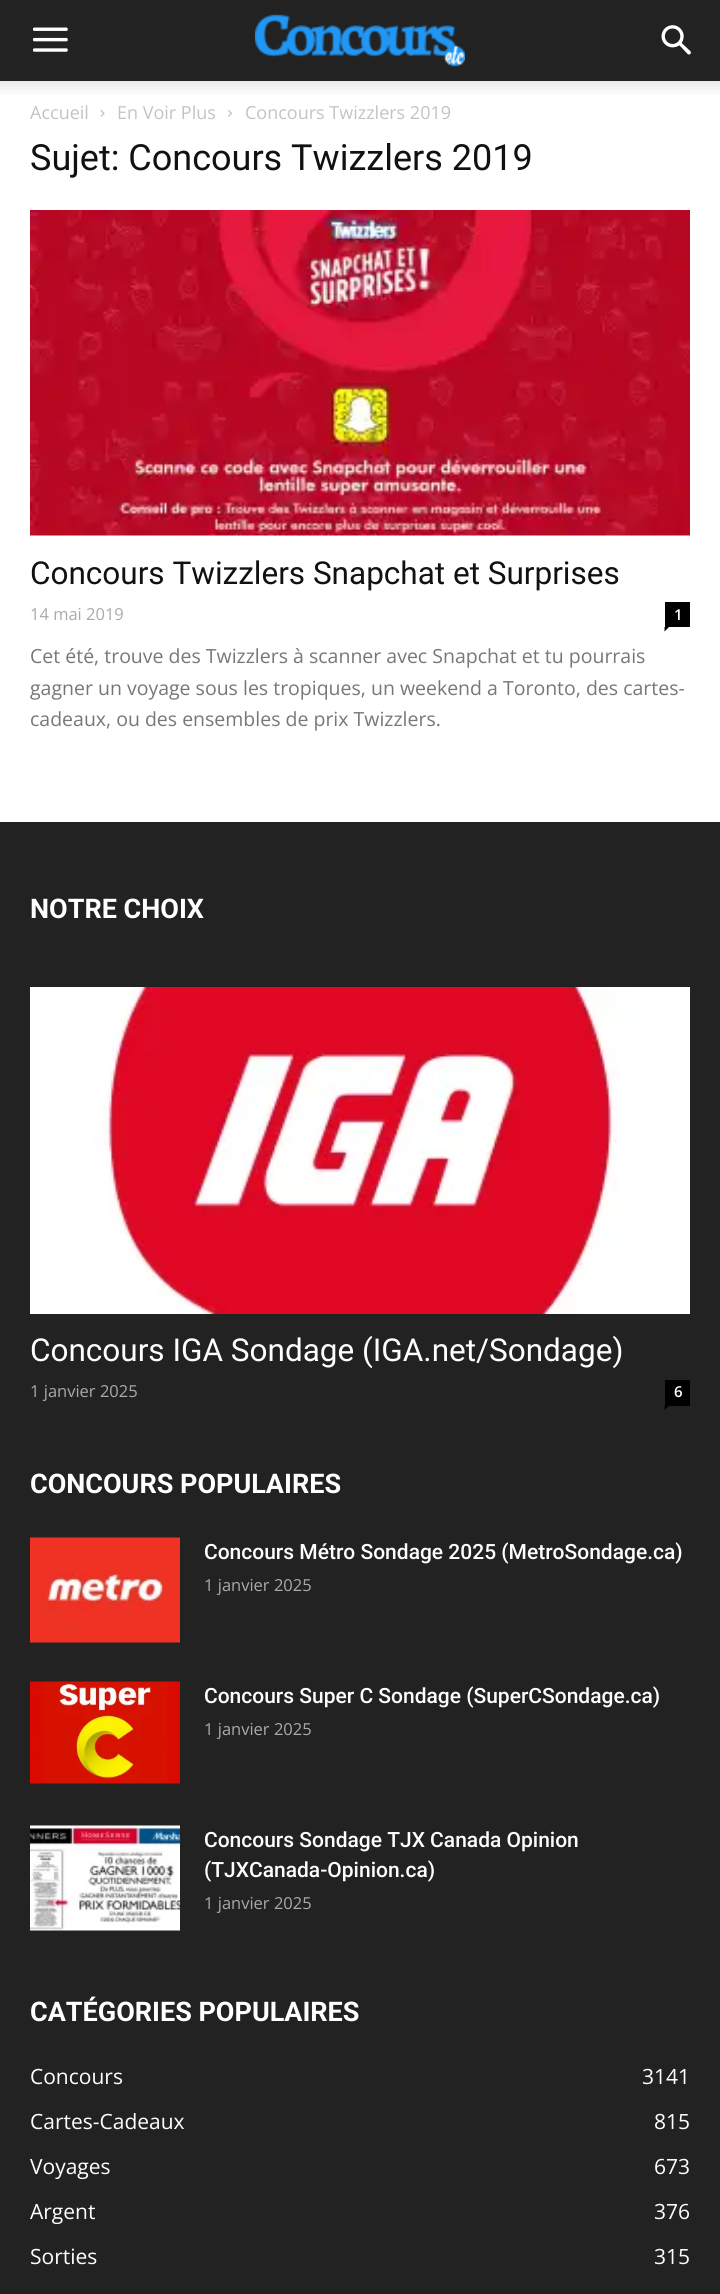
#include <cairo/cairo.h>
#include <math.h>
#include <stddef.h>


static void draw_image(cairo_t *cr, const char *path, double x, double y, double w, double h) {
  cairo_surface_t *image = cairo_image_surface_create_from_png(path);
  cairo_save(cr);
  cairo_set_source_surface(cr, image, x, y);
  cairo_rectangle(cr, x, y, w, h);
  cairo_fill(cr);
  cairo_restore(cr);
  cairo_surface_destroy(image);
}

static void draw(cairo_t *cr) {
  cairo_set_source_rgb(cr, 1, 1, 1);
  cairo_paint(cr);
  cairo_set_source_rgb(cr, 34 / 255.0, 34 / 255.0, 34 / 255.0);
  cairo_rectangle(cr, 0, 0, 720, 81);
  cairo_fill(cr);
  draw_image(cr, "images/1.png", 33, 27, 35, 25);
  draw_image(cr, "images/2.png", 255, 14, 210, 53);
  draw_image(cr, "images/3.png", 661, 25, 30, 30);
  draw_image(cr, "images/4.png", 0, 81, 720, 13);
  draw_image(cr, "images/5.png", 100, 110, 5, 7);
  draw_image(cr, "images/6.png", 228, 110, 4, 7);
  draw_image(cr, "images/7.png", 30, 210, 660, 326);
  cairo_set_source_rgb(cr, 0, 0, 0);
  cairo_rectangle(cr, 665, 602, 25, 25);
  cairo_fill(cr);
  cairo_new_path(cr);
  cairo_move_to(cr, 664.5, 627);
  cairo_line_to(cr, 669, 627);
  cairo_line_to(cr, 664.5, 631.5);
  cairo_close_path(cr);
  cairo_fill(cr);
  cairo_set_source_rgb(cr, 34 / 255.0, 34 / 255.0, 34 / 255.0);
  cairo_rectangle(cr, 0, 822, 720, 1472);
  cairo_fill(cr);
  draw_image(cr, "images/8.png", 30, 987, 660, 327);
  cairo_set_source_rgb(cr, 0, 0, 0);
  cairo_rectangle(cr, 665, 1380, 25, 26);
  cairo_fill(cr);
  cairo_new_path(cr);
  cairo_move_to(cr, 664.5, 1405.5);
  cairo_line_to(cr, 669, 1405.5);
  cairo_line_to(cr, 664.5, 1410);
  cairo_close_path(cr);
  cairo_fill(cr);
  draw_image(cr, "images/9.png", 30, 1537, 150, 106);
  draw_image(cr, "images/10.png", 30, 1681, 150, 103);
  draw_image(cr, "images/11.png", 30, 1825, 150, 106);
  cairo_select_font_face(cr, "Open Sans", CAIRO_FONT_SLANT_NORMAL, CAIRO_FONT_WEIGHT_NORMAL);
  cairo_set_font_size(cr, 18);
  cairo_set_source_rgb(cr, 195 / 255.0, 195 / 255.0, 195 / 255.0);
  cairo_move_to(cr, 30, 119);
  cairo_show_text(cr, "Accueil");
  cairo_move_to(cr, 117, 119);
  cairo_show_text(cr, "En Voir Plus");
  cairo_move_to(cr, 245, 119);
  cairo_show_text(cr, "Concours Twizzlers 2019");
  cairo_select_font_face(cr, "Roboto", CAIRO_FONT_SLANT_NORMAL, CAIRO_FONT_WEIGHT_NORMAL);
  cairo_set_font_size(cr, 36);
  cairo_set_source_rgb(cr, 17 / 255.0, 17 / 255.0, 17 / 255.0);
  cairo_move_to(cr, 30, 170);
  cairo_show_text(cr, "Sujet: Concours Twizzlers 2019");
  cairo_set_font_size(cr, 31.5);
  cairo_move_to(cr, 30, 584);
  cairo_show_text(cr, "Concours Twizzlers Snapchat et Surprises");
  cairo_select_font_face(cr, "Open Sans", CAIRO_FONT_SLANT_NORMAL, CAIRO_FONT_WEIGHT_NORMAL);
  cairo_set_font_size(cr, 16.5);
  cairo_set_source_rgb(cr, 170 / 255.0, 170 / 255.0, 170 / 255.0);
  cairo_move_to(cr, 30, 620);
  cairo_show_text(cr, "14 mai 2019");
  cairo_select_font_face(cr, "Open Sans SemiBold", CAIRO_FONT_SLANT_NORMAL, CAIRO_FONT_WEIGHT_NORMAL);
  cairo_set_font_size(cr, 15);
  cairo_set_source_rgb(cr, 1, 1, 1);
  cairo_move_to(cr, 674, 620);
  cairo_show_text(cr, "1");
  cairo_select_font_face(cr, "Open Sans", CAIRO_FONT_SLANT_NORMAL, CAIRO_FONT_WEIGHT_NORMAL);
  cairo_set_font_size(cr, 19.5);
  cairo_set_source_rgb(cr, 119 / 255.0, 119 / 255.0, 119 / 255.0);
  cairo_move_to(cr, 30, 663);
  cairo_show_text(cr, "Cet été, trouve des Twizzlers à scanner avec Snapchat et tu pourrais");
  cairo_move_to(cr, 30, 695);
  cairo_show_text(cr, "gagner un voyage sous les tropiques, un weekend a Toronto, des cartes-");
  cairo_move_to(cr, 30, 726);
  cairo_show_text(cr, "cadeaux, ou des ensembles de prix Twizzlers.");
  cairo_select_font_face(cr, "Roboto", CAIRO_FONT_SLANT_NORMAL, CAIRO_FONT_WEIGHT_BOLD);
  cairo_set_font_size(cr, 27);
  cairo_set_source_rgb(cr, 1, 1, 1);
  cairo_move_to(cr, 30, 918);
  cairo_show_text(cr, "NOTRE CHOIX");
  cairo_select_font_face(cr, "Roboto", CAIRO_FONT_SLANT_NORMAL, CAIRO_FONT_WEIGHT_NORMAL);
  cairo_set_font_size(cr, 31.5);
  cairo_move_to(cr, 30, 1361);
  cairo_show_text(cr, "Concours IGA Sondage (IGA.net/Sondage)");
  cairo_select_font_face(cr, "Open Sans", CAIRO_FONT_SLANT_NORMAL, CAIRO_FONT_WEIGHT_NORMAL);
  cairo_set_font_size(cr, 16.5);
  cairo_set_source_rgb(cr, 170 / 255.0, 170 / 255.0, 170 / 255.0);
  cairo_move_to(cr, 30, 1397);
  cairo_show_text(cr, "1 janvier 2025");
  cairo_select_font_face(cr, "Open Sans SemiBold", CAIRO_FONT_SLANT_NORMAL, CAIRO_FONT_WEIGHT_NORMAL);
  cairo_set_font_size(cr, 15);
  cairo_set_source_rgb(cr, 1, 1, 1);
  cairo_move_to(cr, 674, 1397);
  cairo_show_text(cr, "6");
  cairo_select_font_face(cr, "Roboto", CAIRO_FONT_SLANT_NORMAL, CAIRO_FONT_WEIGHT_BOLD);
  cairo_set_font_size(cr, 27);
  cairo_move_to(cr, 30, 1493);
  cairo_show_text(cr, "CONCOURS POPULAIRES");
  cairo_select_font_face(cr, "Roboto Medium", CAIRO_FONT_SLANT_NORMAL, CAIRO_FONT_WEIGHT_NORMAL);
  cairo_set_font_size(cr, 21);
  cairo_move_to(cr, 204, 1559);
  cairo_show_text(cr, "Concours Métro Sondage 2025 (MetroSondage.ca)");
  cairo_select_font_face(cr, "Open Sans", CAIRO_FONT_SLANT_NORMAL, CAIRO_FONT_WEIGHT_NORMAL);
  cairo_set_font_size(cr, 16.5);
  cairo_set_source_rgb(cr, 170 / 255.0, 170 / 255.0, 170 / 255.0);
  cairo_move_to(cr, 204, 1591);
  cairo_show_text(cr, "1 janvier 2025");
  cairo_select_font_face(cr, "Roboto Medium", CAIRO_FONT_SLANT_NORMAL, CAIRO_FONT_WEIGHT_NORMAL);
  cairo_set_font_size(cr, 21);
  cairo_set_source_rgb(cr, 1, 1, 1);
  cairo_move_to(cr, 204, 1703);
  cairo_show_text(cr, "Concours Super C Sondage (SuperCSondage.ca)");
  cairo_select_font_face(cr, "Open Sans", CAIRO_FONT_SLANT_NORMAL, CAIRO_FONT_WEIGHT_NORMAL);
  cairo_set_font_size(cr, 16.5);
  cairo_set_source_rgb(cr, 170 / 255.0, 170 / 255.0, 170 / 255.0);
  cairo_move_to(cr, 204, 1735);
  cairo_show_text(cr, "1 janvier 2025");
  cairo_select_font_face(cr, "Roboto Medium", CAIRO_FONT_SLANT_NORMAL, CAIRO_FONT_WEIGHT_NORMAL);
  cairo_set_font_size(cr, 21);
  cairo_set_source_rgb(cr, 1, 1, 1);
  cairo_move_to(cr, 204, 1847);
  cairo_show_text(cr, "Concours Sondage TJX Canada Opinion");
  cairo_move_to(cr, 204, 1877);
  cairo_show_text(cr, "(TJXCanada-Opinion.ca)");
  cairo_select_font_face(cr, "Open Sans", CAIRO_FONT_SLANT_NORMAL, CAIRO_FONT_WEIGHT_NORMAL);
  cairo_set_font_size(cr, 16.5);
  cairo_set_source_rgb(cr, 170 / 255.0, 170 / 255.0, 170 / 255.0);
  cairo_move_to(cr, 204, 1909);
  cairo_show_text(cr, "1 janvier 2025");
  cairo_select_font_face(cr, "Roboto", CAIRO_FONT_SLANT_NORMAL, CAIRO_FONT_WEIGHT_BOLD);
  cairo_set_font_size(cr, 27);
  cairo_set_source_rgb(cr, 1, 1, 1);
  cairo_move_to(cr, 30, 2021);
  cairo_show_text(cr, "CATÉGORIES POPULAIRES");
  cairo_select_font_face(cr, "Open Sans", CAIRO_FONT_SLANT_NORMAL, CAIRO_FONT_WEIGHT_NORMAL);
  cairo_set_font_size(cr, 21);
  cairo_move_to(cr, 30, 2084);
  cairo_show_text(cr, "Concours");
  cairo_move_to(cr, 642, 2084);
  cairo_show_text(cr, "3141");
  cairo_move_to(cr, 30, 2129);
  cairo_show_text(cr, "Cartes-Cadeaux");
  cairo_move_to(cr, 654, 2129);
  cairo_show_text(cr, "815");
  cairo_move_to(cr, 30, 2174);
  cairo_show_text(cr, "Voyages");
  cairo_move_to(cr, 654, 2174);
  cairo_show_text(cr, "673");
  cairo_move_to(cr, 30, 2219);
  cairo_show_text(cr, "Argent");
  cairo_move_to(cr, 654, 2219);
  cairo_show_text(cr, "376");
  cairo_move_to(cr, 30, 2264);
  cairo_show_text(cr, "Sorties");
  cairo_move_to(cr, 654, 2264);
  cairo_show_text(cr, "315");
}

int main(void) {
  cairo_surface_t *surface = cairo_image_surface_create(CAIRO_FORMAT_RGB24, 720, 2294);
  cairo_t *cr = cairo_create(surface);
  cairo_font_options_t *options = cairo_font_options_create();
  cairo_font_options_set_hint_metrics(options, CAIRO_HINT_METRICS_OFF);
  cairo_font_options_set_hint_style(options, CAIRO_HINT_STYLE_NONE);
  cairo_set_font_options(cr, options);
  cairo_set_miter_limit(cr, 4);
  draw(cr);
  cairo_surface_write_to_png(surface, "out.png");
  cairo_font_options_destroy(options);
  cairo_destroy(cr);
  cairo_surface_destroy(surface);
  return 0;
}
